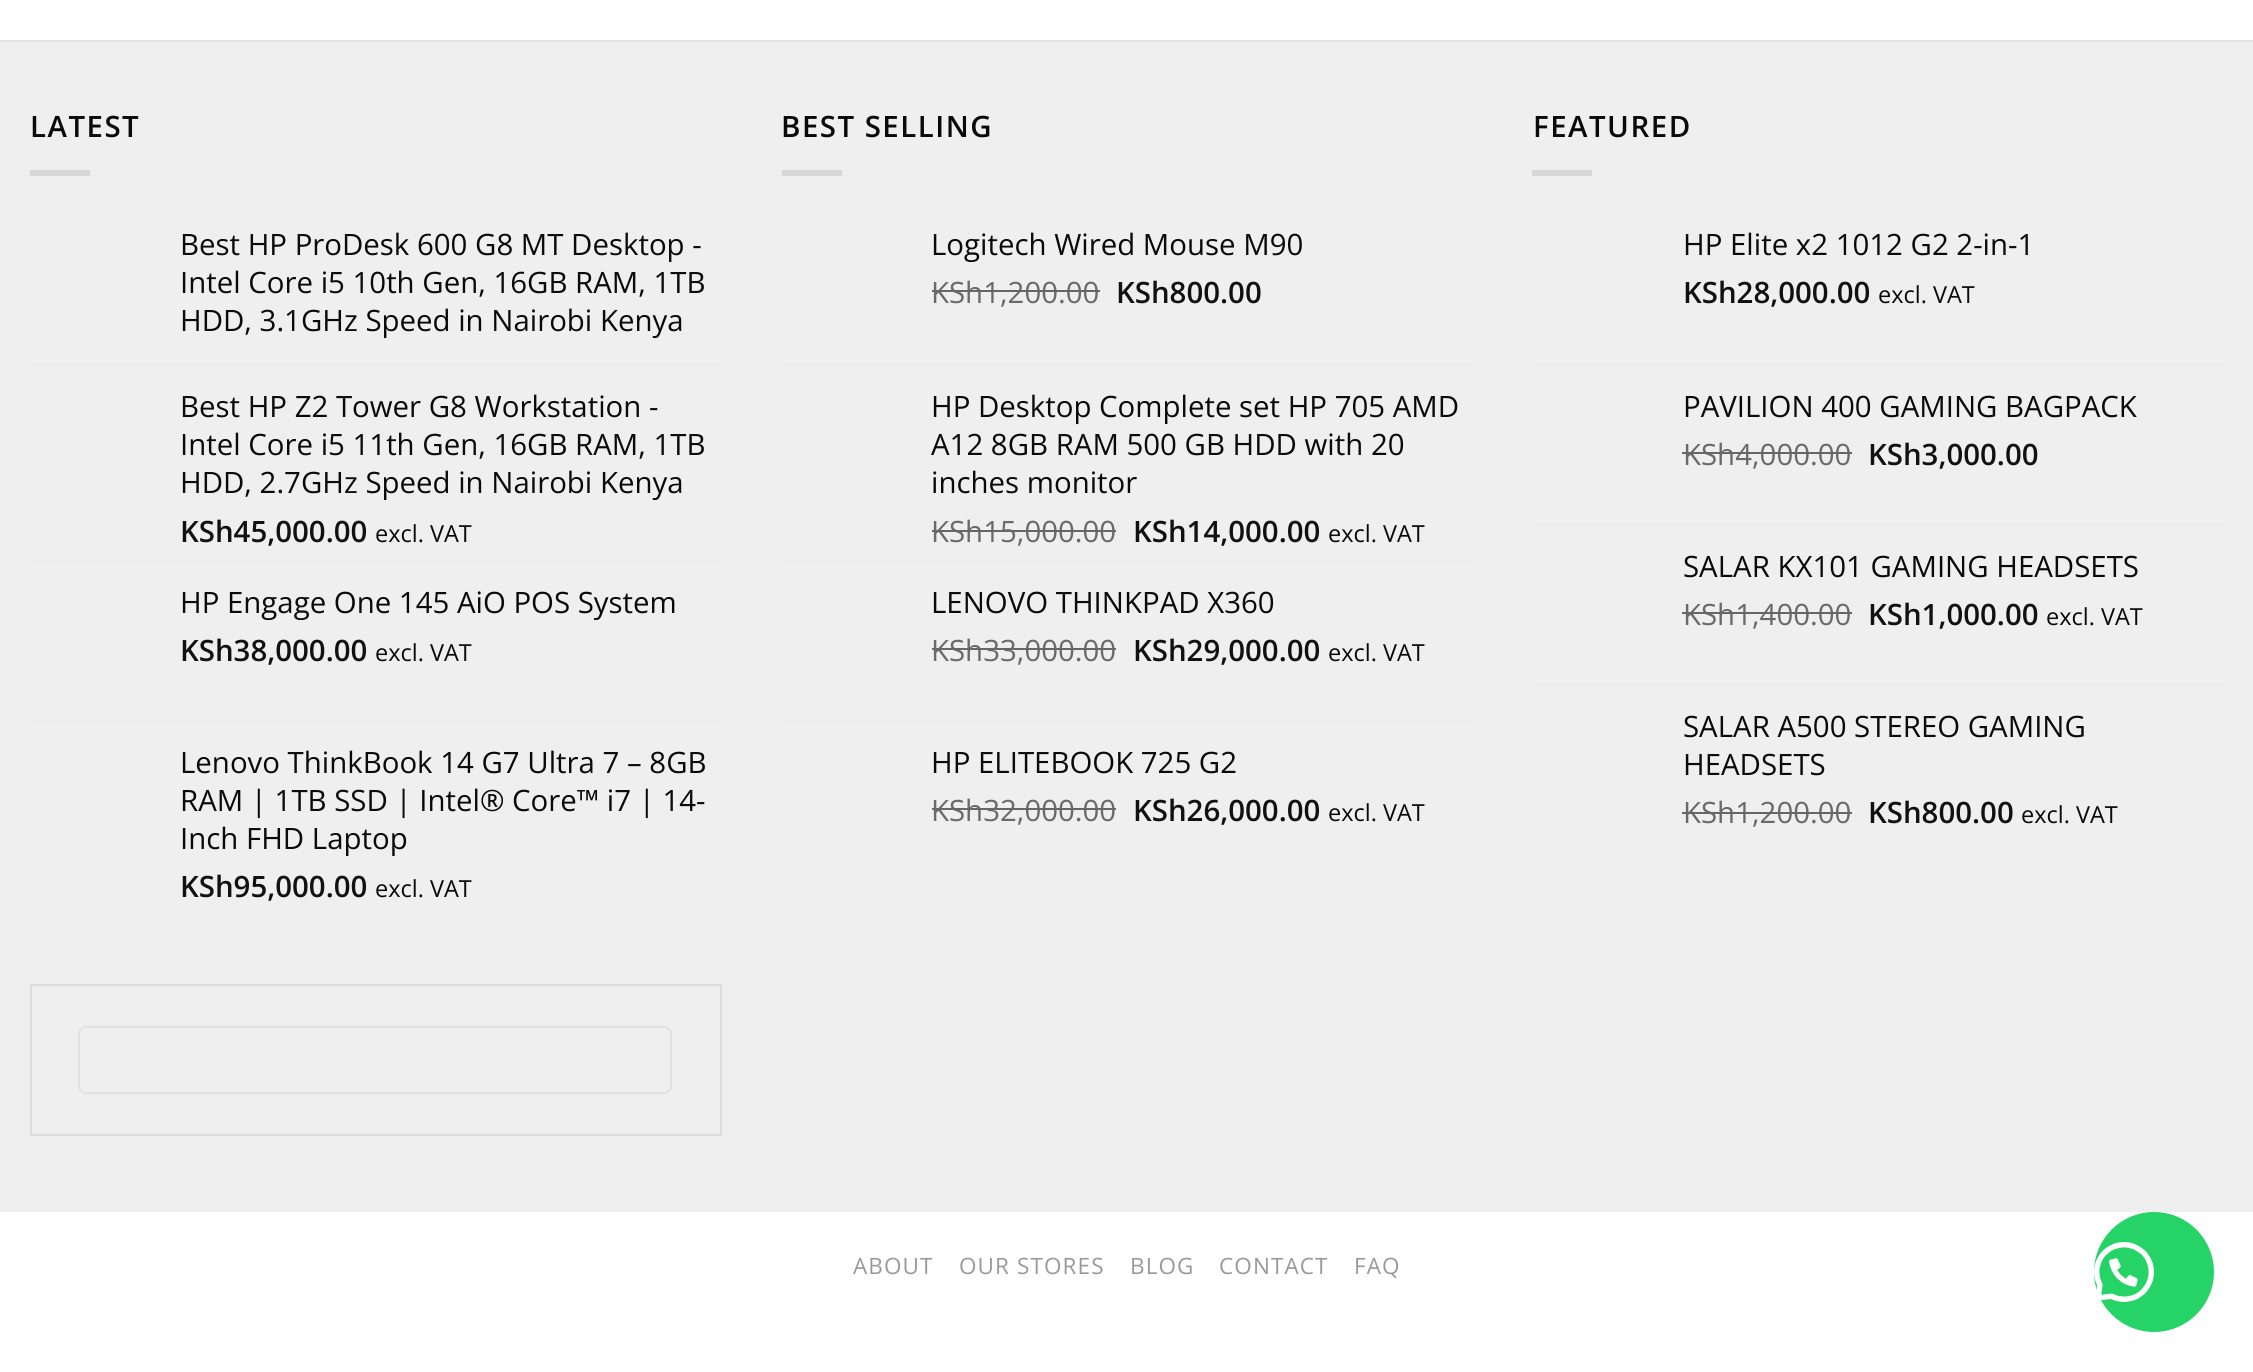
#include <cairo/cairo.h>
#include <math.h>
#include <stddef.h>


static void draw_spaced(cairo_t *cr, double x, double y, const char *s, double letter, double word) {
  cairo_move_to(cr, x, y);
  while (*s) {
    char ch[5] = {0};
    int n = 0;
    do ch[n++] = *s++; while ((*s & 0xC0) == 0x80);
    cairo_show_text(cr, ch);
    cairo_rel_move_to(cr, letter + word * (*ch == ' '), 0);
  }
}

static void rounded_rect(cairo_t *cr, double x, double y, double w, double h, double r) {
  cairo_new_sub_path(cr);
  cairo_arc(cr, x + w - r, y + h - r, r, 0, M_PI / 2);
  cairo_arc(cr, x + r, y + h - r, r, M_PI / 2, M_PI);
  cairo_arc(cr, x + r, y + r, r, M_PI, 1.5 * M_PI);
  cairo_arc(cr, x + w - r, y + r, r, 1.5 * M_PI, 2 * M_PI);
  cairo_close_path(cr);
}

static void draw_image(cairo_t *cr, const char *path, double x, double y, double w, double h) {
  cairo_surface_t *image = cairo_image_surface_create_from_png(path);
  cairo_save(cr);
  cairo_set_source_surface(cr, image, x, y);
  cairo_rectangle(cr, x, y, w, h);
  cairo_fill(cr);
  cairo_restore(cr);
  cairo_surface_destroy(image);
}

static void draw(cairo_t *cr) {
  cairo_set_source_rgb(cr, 1, 1, 1);
  cairo_paint(cr);
  cairo_set_source_rgb(cr, 239 / 255.0, 239 / 255.0, 239 / 255.0);
  cairo_rectangle(cr, 0, 42, 2253, 1170);
  cairo_fill(cr);
  cairo_set_source_rgb(cr, 227 / 255.0, 227 / 255.0, 227 / 255.0);
  cairo_rectangle(cr, 0, 40, 2253, 2);
  cairo_fill(cr);
  cairo_set_source_rgb(cr, 215 / 255.0, 215 / 255.0, 215 / 255.0);
  cairo_rectangle(cr, 30, 170, 60, 6);
  cairo_fill(cr);
  cairo_set_source_rgb(cr, 236 / 255.0, 236 / 255.0, 236 / 255.0);
  cairo_rectangle(cr, 30, 364, 692, 2);
  cairo_fill(cr);
  cairo_rectangle(cr, 30, 560, 692, 2);
  cairo_fill(cr);
  cairo_rectangle(cr, 30, 720, 692, 2);
  cairo_fill(cr);
  cairo_set_source_rgb(cr, 215 / 255.0, 215 / 255.0, 215 / 255.0);
  cairo_rectangle(cr, 782, 170, 60, 6);
  cairo_fill(cr);
  cairo_set_source_rgb(cr, 236 / 255.0, 236 / 255.0, 236 / 255.0);
  cairo_rectangle(cr, 782, 364, 690, 2);
  cairo_fill(cr);
  cairo_rectangle(cr, 782, 560, 690, 2);
  cairo_fill(cr);
  cairo_rectangle(cr, 782, 720, 690, 2);
  cairo_fill(cr);
  cairo_set_source_rgb(cr, 215 / 255.0, 215 / 255.0, 215 / 255.0);
  cairo_rectangle(cr, 1532, 170, 60, 6);
  cairo_fill(cr);
  cairo_set_source_rgb(cr, 236 / 255.0, 236 / 255.0, 236 / 255.0);
  cairo_rectangle(cr, 1532, 364, 692, 2);
  cairo_fill(cr);
  cairo_rectangle(cr, 1532, 524, 692, 2);
  cairo_fill(cr);
  cairo_rectangle(cr, 1532, 684, 692, 2);
  cairo_fill(cr);
  cairo_rectangle(cr, 31, 985, 690, 150);
  cairo_set_source_rgb(cr, 221 / 255.0, 221 / 255.0, 221 / 255.0);
  cairo_stroke(cr);
  rounded_rect(cr, 79, 1027, 592, 66, 7);
  cairo_set_source_rgb(cr, 225 / 255.0, 225 / 255.0, 225 / 255.0);
  cairo_stroke(cr);
  cairo_set_source_rgb(cr, 37 / 255.0, 211 / 255.0, 102 / 255.0);
  cairo_arc(cr, 2154, 1272, 60, 0, 2 * M_PI);
  cairo_fill(cr);
  draw_image(cr, "images/1.png", 2094, 1242, 60, 60);
  cairo_select_font_face(cr, "Open Sans SemiBold", CAIRO_FONT_SLANT_NORMAL, CAIRO_FONT_WEIGHT_NORMAL);
  cairo_set_font_size(cr, 29.4);
  cairo_set_source_rgb(cr, 10 / 255.0, 10 / 255.0, 10 / 255.0);
  draw_spaced(cr, 30, 137, "LATEST", 1.5, 0);
  cairo_select_font_face(cr, "Open Sans", CAIRO_FONT_SLANT_NORMAL, CAIRO_FONT_WEIGHT_NORMAL);
  cairo_move_to(cr, 180, 255);
  cairo_show_text(cr, "Best HP ProDesk 600 G8 MT Desktop -");
  cairo_move_to(cr, 180, 293);
  cairo_show_text(cr, "Intel Core i5 10th Gen, 16GB RAM, 1TB");
  cairo_move_to(cr, 180, 331);
  cairo_show_text(cr, "HDD, 3.1GHz Speed in Nairobi Kenya");
  cairo_move_to(cr, 180, 417);
  cairo_show_text(cr, "Best HP Z2 Tower G8 Workstation -");
  cairo_move_to(cr, 180, 455);
  cairo_show_text(cr, "Intel Core i5 11th Gen, 16GB RAM, 1TB");
  cairo_move_to(cr, 180, 493);
  cairo_show_text(cr, "HDD, 2.7GHz Speed in Nairobi Kenya");
  cairo_select_font_face(cr, "Open Sans SemiBold", CAIRO_FONT_SLANT_NORMAL, CAIRO_FONT_WEIGHT_NORMAL);
  cairo_set_source_rgb(cr, 17 / 255.0, 17 / 255.0, 17 / 255.0);
  cairo_move_to(cr, 180, 542);
  cairo_show_text(cr, "KSh45,000.00");
  cairo_select_font_face(cr, "Open Sans", CAIRO_FONT_SLANT_NORMAL, CAIRO_FONT_WEIGHT_NORMAL);
  cairo_set_font_size(cr, 23.5);
  cairo_set_source_rgb(cr, 10 / 255.0, 10 / 255.0, 10 / 255.0);
  cairo_move_to(cr, 375, 542);
  cairo_show_text(cr, "excl. VAT");
  cairo_save(cr);
  cairo_rectangle(cr, 180, 582, 542, 38);
  cairo_clip(cr);
  cairo_set_font_size(cr, 29.4);
  cairo_move_to(cr, 180, 613);
  cairo_show_text(cr, "HP Engage One 145 AiO POS System");
  cairo_restore(cr);
  cairo_select_font_face(cr, "Open Sans SemiBold", CAIRO_FONT_SLANT_NORMAL, CAIRO_FONT_WEIGHT_NORMAL);
  cairo_set_font_size(cr, 29.4);
  cairo_set_source_rgb(cr, 17 / 255.0, 17 / 255.0, 17 / 255.0);
  cairo_move_to(cr, 180, 661);
  cairo_show_text(cr, "KSh38,000.00");
  cairo_select_font_face(cr, "Open Sans", CAIRO_FONT_SLANT_NORMAL, CAIRO_FONT_WEIGHT_NORMAL);
  cairo_set_font_size(cr, 23.5);
  cairo_set_source_rgb(cr, 10 / 255.0, 10 / 255.0, 10 / 255.0);
  cairo_move_to(cr, 375, 661);
  cairo_show_text(cr, "excl. VAT");
  cairo_set_font_size(cr, 29.4);
  cairo_move_to(cr, 180, 773);
  cairo_show_text(cr, "Lenovo ThinkBook 14 G7 Ultra 7 – 8GB");
  cairo_move_to(cr, 180, 811);
  cairo_show_text(cr, "RAM | 1TB SSD | Intel® Core™ i7 | 14-");
  cairo_move_to(cr, 180, 849);
  cairo_show_text(cr, "Inch FHD Laptop");
  cairo_select_font_face(cr, "Open Sans SemiBold", CAIRO_FONT_SLANT_NORMAL, CAIRO_FONT_WEIGHT_NORMAL);
  cairo_set_source_rgb(cr, 17 / 255.0, 17 / 255.0, 17 / 255.0);
  cairo_move_to(cr, 180, 897);
  cairo_show_text(cr, "KSh95,000.00");
  cairo_select_font_face(cr, "Open Sans", CAIRO_FONT_SLANT_NORMAL, CAIRO_FONT_WEIGHT_NORMAL);
  cairo_set_font_size(cr, 23.5);
  cairo_set_source_rgb(cr, 10 / 255.0, 10 / 255.0, 10 / 255.0);
  cairo_move_to(cr, 375, 897);
  cairo_show_text(cr, "excl. VAT");
  cairo_select_font_face(cr, "Open Sans SemiBold", CAIRO_FONT_SLANT_NORMAL, CAIRO_FONT_WEIGHT_NORMAL);
  cairo_set_font_size(cr, 29.4);
  draw_spaced(cr, 781, 137, "BEST SELLING", 1.5, 0);
  cairo_select_font_face(cr, "Open Sans", CAIRO_FONT_SLANT_NORMAL, CAIRO_FONT_WEIGHT_NORMAL);
  cairo_move_to(cr, 931, 255);
  cairo_show_text(cr, "Logitech Wired Mouse M90");
  cairo_set_source_rgb(cr, 106 / 255.0, 106 / 255.0, 106 / 255.0);
  cairo_move_to(cr, 931, 303);
  cairo_show_text(cr, "KSh1,200.00");
  cairo_set_source_rgb(cr, 102 / 255.0, 102 / 255.0, 102 / 255.0);
  cairo_rectangle(cr, 932, 290, 168, 2);
  cairo_fill(cr);
  cairo_select_font_face(cr, "Open Sans SemiBold", CAIRO_FONT_SLANT_NORMAL, CAIRO_FONT_WEIGHT_NORMAL);
  cairo_set_source_rgb(cr, 17 / 255.0, 17 / 255.0, 17 / 255.0);
  cairo_move_to(cr, 1116, 303);
  cairo_show_text(cr, "KSh800.00");
  cairo_select_font_face(cr, "Open Sans", CAIRO_FONT_SLANT_NORMAL, CAIRO_FONT_WEIGHT_NORMAL);
  cairo_set_source_rgb(cr, 10 / 255.0, 10 / 255.0, 10 / 255.0);
  cairo_move_to(cr, 931, 417);
  cairo_show_text(cr, "HP Desktop Complete set HP 705 AMD");
  cairo_move_to(cr, 931, 455);
  cairo_show_text(cr, "A12 8GB RAM 500 GB HDD with 20");
  cairo_move_to(cr, 931, 493);
  cairo_show_text(cr, "inches monitor");
  cairo_set_source_rgb(cr, 106 / 255.0, 106 / 255.0, 106 / 255.0);
  cairo_move_to(cr, 931, 542);
  cairo_show_text(cr, "KSh15,000.00");
  cairo_set_source_rgb(cr, 102 / 255.0, 102 / 255.0, 102 / 255.0);
  cairo_rectangle(cr, 932, 530, 184, 2);
  cairo_fill(cr);
  cairo_select_font_face(cr, "Open Sans SemiBold", CAIRO_FONT_SLANT_NORMAL, CAIRO_FONT_WEIGHT_NORMAL);
  cairo_set_source_rgb(cr, 17 / 255.0, 17 / 255.0, 17 / 255.0);
  cairo_move_to(cr, 1133, 542);
  cairo_show_text(cr, "KSh14,000.00");
  cairo_select_font_face(cr, "Open Sans", CAIRO_FONT_SLANT_NORMAL, CAIRO_FONT_WEIGHT_NORMAL);
  cairo_set_font_size(cr, 23.5);
  cairo_set_source_rgb(cr, 10 / 255.0, 10 / 255.0, 10 / 255.0);
  cairo_move_to(cr, 1328, 542);
  cairo_show_text(cr, "excl. VAT");
  cairo_set_font_size(cr, 29.4);
  cairo_move_to(cr, 931, 613);
  cairo_show_text(cr, "LENOVO THINKPAD X360");
  cairo_set_source_rgb(cr, 106 / 255.0, 106 / 255.0, 106 / 255.0);
  cairo_move_to(cr, 931, 661);
  cairo_show_text(cr, "KSh33,000.00");
  cairo_set_source_rgb(cr, 102 / 255.0, 102 / 255.0, 102 / 255.0);
  cairo_rectangle(cr, 932, 648, 184, 2);
  cairo_fill(cr);
  cairo_select_font_face(cr, "Open Sans SemiBold", CAIRO_FONT_SLANT_NORMAL, CAIRO_FONT_WEIGHT_NORMAL);
  cairo_set_source_rgb(cr, 17 / 255.0, 17 / 255.0, 17 / 255.0);
  cairo_move_to(cr, 1133, 661);
  cairo_show_text(cr, "KSh29,000.00");
  cairo_select_font_face(cr, "Open Sans", CAIRO_FONT_SLANT_NORMAL, CAIRO_FONT_WEIGHT_NORMAL);
  cairo_set_font_size(cr, 23.5);
  cairo_set_source_rgb(cr, 10 / 255.0, 10 / 255.0, 10 / 255.0);
  cairo_move_to(cr, 1328, 661);
  cairo_show_text(cr, "excl. VAT");
  cairo_set_font_size(cr, 29.4);
  cairo_move_to(cr, 931, 773);
  cairo_show_text(cr, "HP ELITEBOOK 725 G2");
  cairo_set_source_rgb(cr, 106 / 255.0, 106 / 255.0, 106 / 255.0);
  cairo_move_to(cr, 931, 821);
  cairo_show_text(cr, "KSh32,000.00");
  cairo_set_source_rgb(cr, 102 / 255.0, 102 / 255.0, 102 / 255.0);
  cairo_rectangle(cr, 932, 808, 184, 2);
  cairo_fill(cr);
  cairo_select_font_face(cr, "Open Sans SemiBold", CAIRO_FONT_SLANT_NORMAL, CAIRO_FONT_WEIGHT_NORMAL);
  cairo_set_source_rgb(cr, 17 / 255.0, 17 / 255.0, 17 / 255.0);
  cairo_move_to(cr, 1133, 821);
  cairo_show_text(cr, "KSh26,000.00");
  cairo_select_font_face(cr, "Open Sans", CAIRO_FONT_SLANT_NORMAL, CAIRO_FONT_WEIGHT_NORMAL);
  cairo_set_font_size(cr, 23.5);
  cairo_set_source_rgb(cr, 10 / 255.0, 10 / 255.0, 10 / 255.0);
  cairo_move_to(cr, 1328, 821);
  cairo_show_text(cr, "excl. VAT");
  cairo_select_font_face(cr, "Open Sans SemiBold", CAIRO_FONT_SLANT_NORMAL, CAIRO_FONT_WEIGHT_NORMAL);
  cairo_set_font_size(cr, 29.4);
  draw_spaced(cr, 1533, 137, "FEATURED", 1.5, 0);
  cairo_select_font_face(cr, "Open Sans", CAIRO_FONT_SLANT_NORMAL, CAIRO_FONT_WEIGHT_NORMAL);
  cairo_move_to(cr, 1683, 255);
  cairo_show_text(cr, "HP Elite x2 1012 G2 2-in-1");
  cairo_select_font_face(cr, "Open Sans SemiBold", CAIRO_FONT_SLANT_NORMAL, CAIRO_FONT_WEIGHT_NORMAL);
  cairo_set_source_rgb(cr, 17 / 255.0, 17 / 255.0, 17 / 255.0);
  cairo_move_to(cr, 1683, 303);
  cairo_show_text(cr, "KSh28,000.00");
  cairo_select_font_face(cr, "Open Sans", CAIRO_FONT_SLANT_NORMAL, CAIRO_FONT_WEIGHT_NORMAL);
  cairo_set_font_size(cr, 23.5);
  cairo_set_source_rgb(cr, 10 / 255.0, 10 / 255.0, 10 / 255.0);
  cairo_move_to(cr, 1878, 303);
  cairo_show_text(cr, "excl. VAT");
  cairo_set_font_size(cr, 29.4);
  cairo_move_to(cr, 1683, 417);
  cairo_show_text(cr, "PAVILION 400 GAMING BAGPACK");
  cairo_set_source_rgb(cr, 106 / 255.0, 106 / 255.0, 106 / 255.0);
  cairo_move_to(cr, 1683, 465);
  cairo_show_text(cr, "KSh4,000.00");
  cairo_set_source_rgb(cr, 102 / 255.0, 102 / 255.0, 102 / 255.0);
  cairo_rectangle(cr, 1682, 452, 170, 2);
  cairo_fill(cr);
  cairo_select_font_face(cr, "Open Sans SemiBold", CAIRO_FONT_SLANT_NORMAL, CAIRO_FONT_WEIGHT_NORMAL);
  cairo_set_source_rgb(cr, 17 / 255.0, 17 / 255.0, 17 / 255.0);
  cairo_move_to(cr, 1868, 465);
  cairo_show_text(cr, "KSh3,000.00");
  cairo_select_font_face(cr, "Open Sans", CAIRO_FONT_SLANT_NORMAL, CAIRO_FONT_WEIGHT_NORMAL);
  cairo_set_source_rgb(cr, 10 / 255.0, 10 / 255.0, 10 / 255.0);
  cairo_move_to(cr, 1683, 577);
  cairo_show_text(cr, "SALAR KX101 GAMING HEADSETS");
  cairo_set_source_rgb(cr, 106 / 255.0, 106 / 255.0, 106 / 255.0);
  cairo_move_to(cr, 1683, 625);
  cairo_show_text(cr, "KSh1,400.00");
  cairo_set_source_rgb(cr, 102 / 255.0, 102 / 255.0, 102 / 255.0);
  cairo_rectangle(cr, 1682, 612, 170, 2);
  cairo_fill(cr);
  cairo_select_font_face(cr, "Open Sans SemiBold", CAIRO_FONT_SLANT_NORMAL, CAIRO_FONT_WEIGHT_NORMAL);
  cairo_set_source_rgb(cr, 17 / 255.0, 17 / 255.0, 17 / 255.0);
  cairo_move_to(cr, 1868, 625);
  cairo_show_text(cr, "KSh1,000.00");
  cairo_select_font_face(cr, "Open Sans", CAIRO_FONT_SLANT_NORMAL, CAIRO_FONT_WEIGHT_NORMAL);
  cairo_set_font_size(cr, 23.5);
  cairo_set_source_rgb(cr, 10 / 255.0, 10 / 255.0, 10 / 255.0);
  cairo_move_to(cr, 2046, 625);
  cairo_show_text(cr, "excl. VAT");
  cairo_set_font_size(cr, 29.4);
  cairo_move_to(cr, 1683, 737);
  cairo_show_text(cr, "SALAR A500 STEREO GAMING");
  cairo_move_to(cr, 1683, 775);
  cairo_show_text(cr, "HEADSETS");
  cairo_set_source_rgb(cr, 106 / 255.0, 106 / 255.0, 106 / 255.0);
  cairo_move_to(cr, 1683, 823);
  cairo_show_text(cr, "KSh1,200.00");
  cairo_set_source_rgb(cr, 102 / 255.0, 102 / 255.0, 102 / 255.0);
  cairo_rectangle(cr, 1682, 812, 170, 2);
  cairo_fill(cr);
  cairo_select_font_face(cr, "Open Sans SemiBold", CAIRO_FONT_SLANT_NORMAL, CAIRO_FONT_WEIGHT_NORMAL);
  cairo_set_source_rgb(cr, 17 / 255.0, 17 / 255.0, 17 / 255.0);
  cairo_move_to(cr, 1868, 823);
  cairo_show_text(cr, "KSh800.00");
  cairo_select_font_face(cr, "Open Sans", CAIRO_FONT_SLANT_NORMAL, CAIRO_FONT_WEIGHT_NORMAL);
  cairo_set_font_size(cr, 23.5);
  cairo_set_source_rgb(cr, 10 / 255.0, 10 / 255.0, 10 / 255.0);
  cairo_move_to(cr, 2021, 823);
  cairo_show_text(cr, "excl. VAT");
  cairo_set_font_size(cr, 22.5);
  cairo_set_source_rgb(cr, 153 / 255.0, 153 / 255.0, 153 / 255.0);
  draw_spaced(cr, 853, 1274, "ABOUT", 1.1, 0);
  draw_spaced(cr, 959, 1274, "OUR STORES", 1.1, 0);
  draw_spaced(cr, 1130, 1274, "BLOG", 1.1, 0);
  draw_spaced(cr, 1219, 1274, "CONTACT", 1.1, 0);
  draw_spaced(cr, 1354, 1274, "FAQ", 1.1, 0);
}

int main(void) {
  cairo_surface_t *surface = cairo_image_surface_create(CAIRO_FORMAT_RGB24, 2253, 1372);
  cairo_t *cr = cairo_create(surface);
  cairo_font_options_t *options = cairo_font_options_create();
  cairo_font_options_set_hint_metrics(options, CAIRO_HINT_METRICS_OFF);
  cairo_font_options_set_hint_style(options, CAIRO_HINT_STYLE_NONE);
  cairo_set_font_options(cr, options);
  cairo_set_miter_limit(cr, 4);
  draw(cr);
  cairo_surface_write_to_png(surface, "out.png");
  cairo_font_options_destroy(options);
  cairo_destroy(cr);
  cairo_surface_destroy(surface);
  return 0;
}
